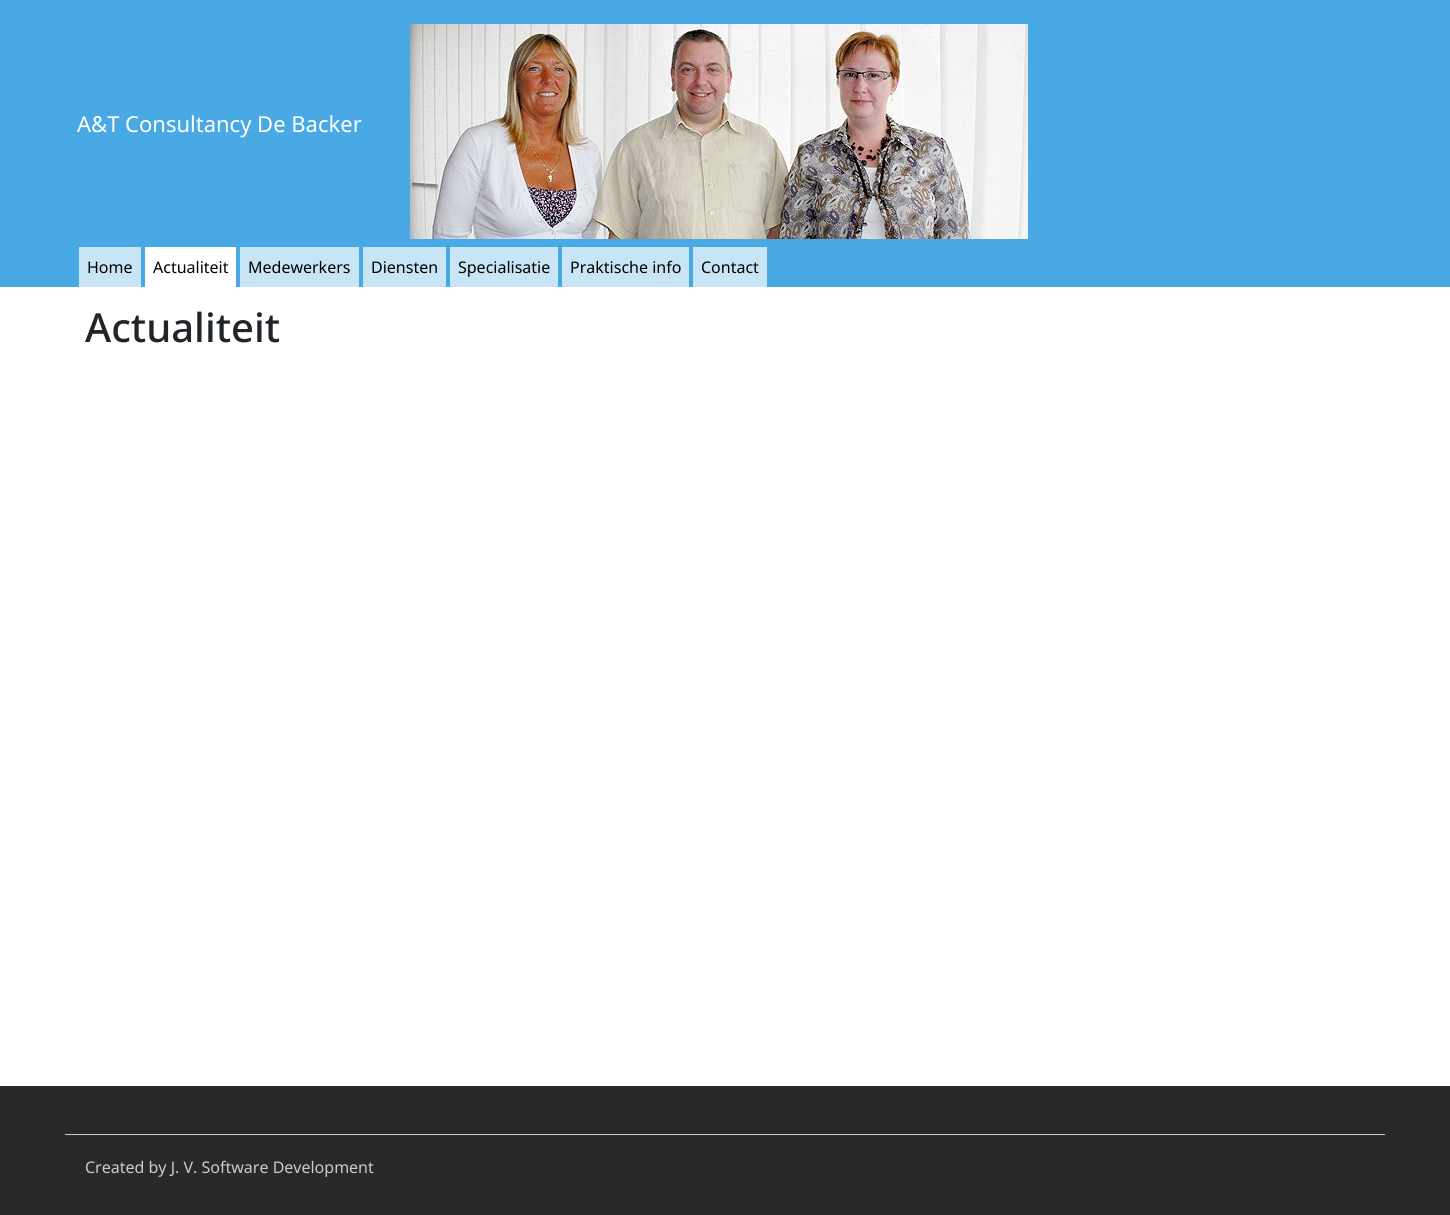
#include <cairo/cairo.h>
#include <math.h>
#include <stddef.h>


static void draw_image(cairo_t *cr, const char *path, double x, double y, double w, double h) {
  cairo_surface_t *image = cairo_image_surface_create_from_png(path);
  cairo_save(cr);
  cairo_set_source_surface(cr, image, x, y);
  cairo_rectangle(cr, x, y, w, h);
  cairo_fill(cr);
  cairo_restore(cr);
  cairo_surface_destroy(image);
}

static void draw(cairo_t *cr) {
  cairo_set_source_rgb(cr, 1, 1, 1);
  cairo_paint(cr);
  cairo_set_source_rgb(cr, 72 / 255.0, 169 / 255.0, 228 / 255.0);
  cairo_rectangle(cr, 0, 0, 1450, 287);
  cairo_fill(cr);
  draw_image(cr, "images/1.png", 410, 24, 618, 215);
  cairo_set_source_rgb(cr, 200 / 255.0, 229 / 255.0, 246 / 255.0);
  cairo_rectangle(cr, 79, 247, 62, 40);
  cairo_fill(cr);
  cairo_set_source_rgb(cr, 1, 1, 1);
  cairo_rectangle(cr, 145, 247, 91, 40);
  cairo_fill(cr);
  cairo_set_source_rgb(cr, 200 / 255.0, 229 / 255.0, 246 / 255.0);
  cairo_rectangle(cr, 240, 247, 119, 40);
  cairo_fill(cr);
  cairo_rectangle(cr, 363, 247, 83, 40);
  cairo_fill(cr);
  cairo_rectangle(cr, 450, 247, 108, 40);
  cairo_fill(cr);
  cairo_rectangle(cr, 562, 247, 127, 40);
  cairo_fill(cr);
  cairo_rectangle(cr, 693, 247, 74, 40);
  cairo_fill(cr);
  cairo_set_source_rgb(cr, 41 / 255.0, 41 / 255.0, 41 / 255.0);
  cairo_rectangle(cr, 0, 1086, 1450, 129);
  cairo_fill(cr);
  cairo_set_source_rgb(cr, 204 / 255.0, 204 / 255.0, 204 / 255.0);
  cairo_rectangle(cr, 65, 1134, 1320, 1);
  cairo_fill(cr);
  cairo_select_font_face(cr, "Noto Sans", CAIRO_FONT_SLANT_NORMAL, CAIRO_FONT_WEIGHT_NORMAL);
  cairo_set_font_size(cr, 22);
  cairo_set_source_rgb(cr, 1, 1, 1);
  cairo_move_to(cr, 77, 132);
  cairo_show_text(cr, "A&T Consultancy De Backer");
  cairo_set_font_size(cr, 16);
  cairo_set_source_rgb(cr, 0, 0, 0);
  cairo_move_to(cr, 87, 273);
  cairo_show_text(cr, "Home");
  cairo_move_to(cr, 153, 273);
  cairo_show_text(cr, "Actualiteit");
  cairo_move_to(cr, 248, 273);
  cairo_show_text(cr, "Medewerkers");
  cairo_move_to(cr, 371, 273);
  cairo_show_text(cr, "Diensten");
  cairo_move_to(cr, 458, 273);
  cairo_show_text(cr, "Specialisatie");
  cairo_move_to(cr, 570, 273);
  cairo_show_text(cr, "Praktische info");
  cairo_move_to(cr, 701, 273);
  cairo_show_text(cr, "Contact");
  cairo_select_font_face(cr, "Noto Sans Medium", CAIRO_FONT_SLANT_NORMAL, CAIRO_FONT_WEIGHT_NORMAL);
  cairo_set_font_size(cr, 40);
  cairo_set_source_rgb(cr, 33 / 255.0, 37 / 255.0, 41 / 255.0);
  cairo_move_to(cr, 85, 342);
  cairo_show_text(cr, "Actualiteit");
  cairo_select_font_face(cr, "Noto Sans", CAIRO_FONT_SLANT_NORMAL, CAIRO_FONT_WEIGHT_NORMAL);
  cairo_set_font_size(cr, 16);
  cairo_set_source_rgb(cr, 204 / 255.0, 204 / 255.0, 204 / 255.0);
  cairo_move_to(cr, 85, 1173);
  cairo_show_text(cr, "Created by J. V. Software Development");
}

int main(void) {
  cairo_surface_t *surface = cairo_image_surface_create(CAIRO_FORMAT_RGB24, 1450, 1215);
  cairo_t *cr = cairo_create(surface);
  cairo_font_options_t *options = cairo_font_options_create();
  cairo_font_options_set_hint_metrics(options, CAIRO_HINT_METRICS_OFF);
  cairo_font_options_set_hint_style(options, CAIRO_HINT_STYLE_NONE);
  cairo_set_font_options(cr, options);
  cairo_set_miter_limit(cr, 4);
  draw(cr);
  cairo_surface_write_to_png(surface, "out.png");
  cairo_font_options_destroy(options);
  cairo_destroy(cr);
  cairo_surface_destroy(surface);
  return 0;
}
